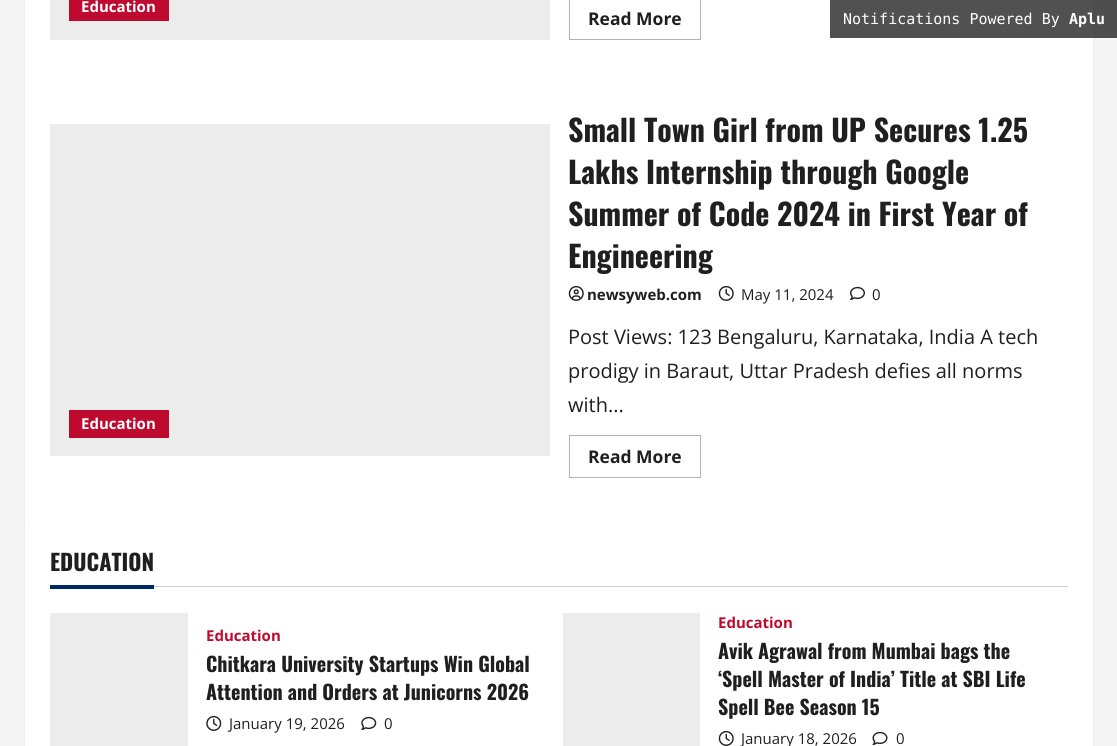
#include <cairo/cairo.h>
#include <math.h>
#include <stddef.h>


static void rounded_rect(cairo_t *cr, double x, double y, double w, double h, double r) {
  cairo_new_sub_path(cr);
  cairo_arc(cr, x + w - r, y + h - r, r, 0, M_PI / 2);
  cairo_arc(cr, x + r, y + h - r, r, M_PI / 2, M_PI);
  cairo_arc(cr, x + r, y + r, r, M_PI, 1.5 * M_PI);
  cairo_arc(cr, x + w - r, y + r, r, 1.5 * M_PI, 2 * M_PI);
  cairo_close_path(cr);
}

static void draw_shadow(cairo_t *cr, double x, double y, double w, double h, double r, double blur, double alpha) {
  cairo_push_group_with_content(cr, CAIRO_CONTENT_ALPHA);
  cairo_set_operator(cr, CAIRO_OPERATOR_SOURCE);
  for (int i = 15; i >= -15 && fmin(w, h) + blur * i / 3 > 0; i -= 2) {
    double e = blur * i / 6;
    cairo_set_source_rgba(cr, 0, 0, 0, alpha * erfc((i - 1) / 8.5) / 2);
    rounded_rect(cr, x - e, y - e, w + 2 * e, h + 2 * e, fmax(0, fmin(r + e + blur * .6, fmin(w, h) / 2 + e)));
    cairo_fill(cr);
  }
  cairo_pattern_t *soft = cairo_pop_group(cr);
  cairo_mask(cr, soft);
  cairo_pattern_destroy(soft);
}

static void draw_image(cairo_t *cr, const char *path, double x, double y, double w, double h) {
  cairo_surface_t *image = cairo_image_surface_create_from_png(path);
  cairo_save(cr);
  cairo_set_source_surface(cr, image, x, y);
  cairo_rectangle(cr, x, y, w, h);
  cairo_fill(cr);
  cairo_restore(cr);
  cairo_surface_destroy(image);
}

static void draw(cairo_t *cr) {
  cairo_set_source_rgb(cr, 245 / 255.0, 245 / 255.0, 245 / 255.0);
  cairo_paint(cr);
  cairo_set_source_rgb(cr, 0, 0, 0);
  draw_shadow(cr, 25, -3, 1068, 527, 0, 1, 0.08);
  cairo_set_source_rgb(cr, 1, 1, 1);
  cairo_rectangle(cr, 25, 0, 1068, 521);
  cairo_fill(cr);
  cairo_set_source_rgb(cr, 236 / 255.0, 236 / 255.0, 236 / 255.0);
  cairo_rectangle(cr, 50, 0, 500, 40);
  cairo_fill(cr);
  cairo_set_source_rgb(cr, 191 / 255.0, 10 / 255.0, 48 / 255.0);
  cairo_rectangle(cr, 69, 0, 100, 21);
  cairo_fill(cr);
  cairo_rectangle(cr, 569.5, -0.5, 131, 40);
  cairo_set_source_rgb(cr, 179 / 255.0, 179 / 255.0, 179 / 255.0);
  cairo_set_line_width(cr, 1);
  cairo_stroke(cr);
  cairo_set_source_rgb(cr, 236 / 255.0, 236 / 255.0, 236 / 255.0);
  cairo_rectangle(cr, 50, 124, 500, 332);
  cairo_fill(cr);
  cairo_set_source_rgb(cr, 191 / 255.0, 10 / 255.0, 48 / 255.0);
  cairo_rectangle(cr, 69, 410, 100, 28);
  cairo_fill(cr);
  draw_image(cr, "images/1.png", 568, 285, 16, 16);
  draw_image(cr, "images/2.png", 718, 285, 16, 16);
  draw_image(cr, "images/3.png", 850, 286, 15, 14);
  cairo_rectangle(cr, 569.5, 435.5, 131, 42);
  cairo_set_source_rgb(cr, 179 / 255.0, 179 / 255.0, 179 / 255.0);
  cairo_stroke(cr);
  cairo_set_source_rgb(cr, 0, 0, 0);
  draw_shadow(cr, 25, 524, 1068, 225, 0, 1, 0.08);
  cairo_set_source_rgb(cr, 1, 1, 1);
  cairo_rectangle(cr, 25, 521, 1068, 225);
  cairo_fill(cr);
  cairo_set_source_rgb(cr, 204 / 255.0, 204 / 255.0, 204 / 255.0);
  cairo_rectangle(cr, 154, 586, 914, 1);
  cairo_fill(cr);
  cairo_set_source_rgb(cr, 0, 40 / 255.0, 104 / 255.0);
  cairo_rectangle(cr, 50, 585, 104, 4);
  cairo_fill(cr);
  cairo_set_source_rgb(cr, 236 / 255.0, 236 / 255.0, 236 / 255.0);
  cairo_rectangle(cr, 50, 613, 138, 133);
  cairo_fill(cr);
  draw_image(cr, "images/4.png", 206, 715, 16, 16);
  draw_image(cr, "images/5.png", 361, 716, 16, 14);
  cairo_rectangle(cr, 563, 613, 137, 133);
  cairo_fill(cr);
  draw_image(cr, "images/2.png", 718, 730, 16, 16);
  draw_image(cr, "images/6.png", 872, 731, 16, 14);
  cairo_set_source_rgba(cr, 0, 0, 0, 0.68);
  cairo_rectangle(cr, 830, 0, 287, 38);
  cairo_fill(cr);
  cairo_select_font_face(cr, "Open Sans", CAIRO_FONT_SLANT_NORMAL, CAIRO_FONT_WEIGHT_BOLD);
  cairo_set_font_size(cr, 15);
  cairo_set_source_rgb(cr, 1, 1, 1);
  cairo_move_to(cr, 81, 12);
  cairo_show_text(cr, "Education");
  cairo_set_font_size(cr, 17.5);
  cairo_set_source_rgb(cr, 31 / 255.0, 31 / 255.0, 31 / 255.0);
  cairo_move_to(cr, 588, 25);
  cairo_show_text(cr, "Read More");
  cairo_set_font_size(cr, 15);
  cairo_set_source_rgb(cr, 1, 1, 1);
  cairo_move_to(cr, 81, 429);
  cairo_show_text(cr, "Education");
  cairo_select_font_face(cr, "Oswald", CAIRO_FONT_SLANT_NORMAL, CAIRO_FONT_WEIGHT_BOLD);
  cairo_set_font_size(cr, 30);
  cairo_set_source_rgb(cr, 31 / 255.0, 31 / 255.0, 31 / 255.0);
  cairo_move_to(cr, 568, 142);
  cairo_show_text(cr, "Small Town Girl from UP Secures 1.25");
  cairo_move_to(cr, 568, 184);
  cairo_show_text(cr, "Lakhs Internship through Google");
  cairo_move_to(cr, 568, 226);
  cairo_show_text(cr, "Summer of Code 2024 in First Year of");
  cairo_move_to(cr, 568, 268);
  cairo_show_text(cr, "Engineering");
  cairo_select_font_face(cr, "Open Sans", CAIRO_FONT_SLANT_NORMAL, CAIRO_FONT_WEIGHT_BOLD);
  cairo_set_font_size(cr, 15);
  cairo_move_to(cr, 587, 300);
  cairo_show_text(cr, "newsyweb.com");
  cairo_select_font_face(cr, "Open Sans", CAIRO_FONT_SLANT_NORMAL, CAIRO_FONT_WEIGHT_NORMAL);
  cairo_move_to(cr, 741, 300);
  cairo_show_text(cr, "May 11, 2024");
  cairo_move_to(cr, 872, 300);
  cairo_show_text(cr, "0");
  cairo_set_font_size(cr, 20);
  cairo_move_to(cr, 568, 344);
  cairo_show_text(cr, "Post Views: 123 Bengaluru, Karnataka, India A tech");
  cairo_move_to(cr, 568, 378);
  cairo_show_text(cr, "prodigy in Baraut, Uttar Pradesh defies all norms");
  cairo_move_to(cr, 568, 412);
  cairo_show_text(cr, "with...");
  cairo_select_font_face(cr, "Open Sans", CAIRO_FONT_SLANT_NORMAL, CAIRO_FONT_WEIGHT_BOLD);
  cairo_set_font_size(cr, 17.5);
  cairo_move_to(cr, 588, 463);
  cairo_show_text(cr, "Read More");
  cairo_select_font_face(cr, "Oswald", CAIRO_FONT_SLANT_NORMAL, CAIRO_FONT_WEIGHT_BOLD);
  cairo_set_font_size(cr, 22.5);
  cairo_move_to(cr, 50, 571);
  cairo_show_text(cr, "EDUCATION");
  cairo_select_font_face(cr, "Open Sans", CAIRO_FONT_SLANT_NORMAL, CAIRO_FONT_WEIGHT_BOLD);
  cairo_set_font_size(cr, 15);
  cairo_set_source_rgb(cr, 191 / 255.0, 10 / 255.0, 48 / 255.0);
  cairo_move_to(cr, 206, 641);
  cairo_show_text(cr, "Education");
  cairo_select_font_face(cr, "Oswald", CAIRO_FONT_SLANT_NORMAL, CAIRO_FONT_WEIGHT_BOLD);
  cairo_set_font_size(cr, 20);
  cairo_set_source_rgb(cr, 31 / 255.0, 31 / 255.0, 31 / 255.0);
  cairo_move_to(cr, 206, 672);
  cairo_show_text(cr, "Chitkara University Startups Win Global");
  cairo_move_to(cr, 206, 700);
  cairo_show_text(cr, "Attention and Orders at Junicorns 2026");
  cairo_select_font_face(cr, "Open Sans", CAIRO_FONT_SLANT_NORMAL, CAIRO_FONT_WEIGHT_NORMAL);
  cairo_set_font_size(cr, 15);
  cairo_move_to(cr, 229, 729);
  cairo_show_text(cr, "January 19, 2026");
  cairo_move_to(cr, 384, 729);
  cairo_show_text(cr, "0");
  cairo_select_font_face(cr, "Open Sans", CAIRO_FONT_SLANT_NORMAL, CAIRO_FONT_WEIGHT_BOLD);
  cairo_set_source_rgb(cr, 191 / 255.0, 10 / 255.0, 48 / 255.0);
  cairo_move_to(cr, 718, 628);
  cairo_show_text(cr, "Education");
  cairo_select_font_face(cr, "Oswald", CAIRO_FONT_SLANT_NORMAL, CAIRO_FONT_WEIGHT_BOLD);
  cairo_set_font_size(cr, 20);
  cairo_set_source_rgb(cr, 31 / 255.0, 31 / 255.0, 31 / 255.0);
  cairo_move_to(cr, 718, 659);
  cairo_show_text(cr, "Avik Agrawal from Mumbai bags the");
  cairo_move_to(cr, 718, 687);
  cairo_show_text(cr, "‘Spell Master of India’ Title at SBI Life");
  cairo_move_to(cr, 718, 715);
  cairo_show_text(cr, "Spell Bee Season 15");
  cairo_select_font_face(cr, "Open Sans", CAIRO_FONT_SLANT_NORMAL, CAIRO_FONT_WEIGHT_NORMAL);
  cairo_set_font_size(cr, 15);
  cairo_move_to(cr, 741, 744);
  cairo_show_text(cr, "January 18, 2026");
  cairo_move_to(cr, 896, 744);
  cairo_show_text(cr, "0");
  cairo_select_font_face(cr, "DejaVu Sans Mono", CAIRO_FONT_SLANT_NORMAL, CAIRO_FONT_WEIGHT_NORMAL);
  cairo_set_source_rgb(cr, 1, 1, 1);
  cairo_move_to(cr, 843, 24);
  cairo_show_text(cr, "Notifications Powered By");
  cairo_select_font_face(cr, "DejaVu Sans Mono", CAIRO_FONT_SLANT_NORMAL, CAIRO_FONT_WEIGHT_BOLD);
  cairo_move_to(cr, 1069, 24);
  cairo_show_text(cr, "Aplu");
}

int main(void) {
  cairo_surface_t *surface = cairo_image_surface_create(CAIRO_FORMAT_RGB24, 1117, 746);
  cairo_t *cr = cairo_create(surface);
  cairo_font_options_t *options = cairo_font_options_create();
  cairo_font_options_set_hint_metrics(options, CAIRO_HINT_METRICS_OFF);
  cairo_font_options_set_hint_style(options, CAIRO_HINT_STYLE_NONE);
  cairo_set_font_options(cr, options);
  cairo_set_miter_limit(cr, 4);
  draw(cr);
  cairo_surface_write_to_png(surface, "out.png");
  cairo_font_options_destroy(options);
  cairo_destroy(cr);
  cairo_surface_destroy(surface);
  return 0;
}
